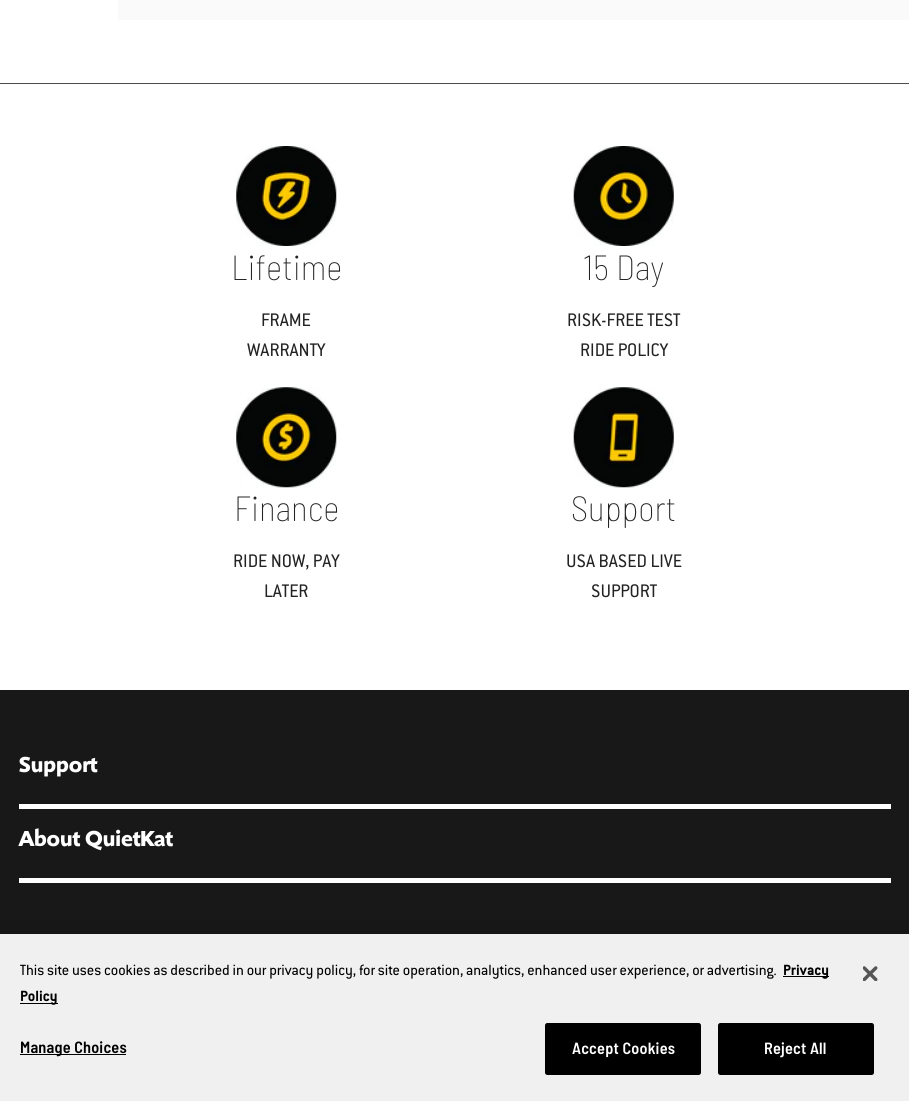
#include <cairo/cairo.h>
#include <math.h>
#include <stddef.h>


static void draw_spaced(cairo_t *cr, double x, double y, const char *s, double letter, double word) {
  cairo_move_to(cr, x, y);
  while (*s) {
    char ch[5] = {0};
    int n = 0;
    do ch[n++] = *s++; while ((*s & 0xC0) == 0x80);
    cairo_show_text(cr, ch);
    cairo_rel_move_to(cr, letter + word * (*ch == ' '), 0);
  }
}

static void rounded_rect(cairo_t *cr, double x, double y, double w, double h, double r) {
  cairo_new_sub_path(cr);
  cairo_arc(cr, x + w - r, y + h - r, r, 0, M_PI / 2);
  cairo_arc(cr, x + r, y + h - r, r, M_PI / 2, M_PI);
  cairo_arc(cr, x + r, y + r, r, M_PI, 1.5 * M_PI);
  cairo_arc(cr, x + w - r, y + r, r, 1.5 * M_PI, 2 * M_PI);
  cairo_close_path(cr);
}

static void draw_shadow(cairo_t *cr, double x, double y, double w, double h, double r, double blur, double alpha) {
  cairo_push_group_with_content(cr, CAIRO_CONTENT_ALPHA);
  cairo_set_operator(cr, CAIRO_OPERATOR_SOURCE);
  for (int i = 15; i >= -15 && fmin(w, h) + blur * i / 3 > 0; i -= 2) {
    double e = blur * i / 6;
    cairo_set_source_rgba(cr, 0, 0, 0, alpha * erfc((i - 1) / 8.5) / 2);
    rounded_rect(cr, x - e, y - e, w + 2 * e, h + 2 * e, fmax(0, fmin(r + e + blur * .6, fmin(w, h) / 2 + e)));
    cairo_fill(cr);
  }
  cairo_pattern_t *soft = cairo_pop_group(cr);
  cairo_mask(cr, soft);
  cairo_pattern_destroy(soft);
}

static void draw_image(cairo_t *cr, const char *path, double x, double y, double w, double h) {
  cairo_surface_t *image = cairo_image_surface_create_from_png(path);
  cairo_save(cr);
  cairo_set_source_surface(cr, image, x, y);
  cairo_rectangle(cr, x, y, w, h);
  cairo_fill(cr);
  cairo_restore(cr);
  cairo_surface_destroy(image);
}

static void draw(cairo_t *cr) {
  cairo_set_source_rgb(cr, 1, 1, 1);
  cairo_paint(cr);
  cairo_set_source_rgb(cr, 250 / 255.0, 250 / 255.0, 250 / 255.0);
  cairo_rectangle(cr, 118, 0, 791, 20);
  cairo_fill(cr);
  cairo_set_source_rgb(cr, 76 / 255.0, 76 / 255.0, 76 / 255.0);
  cairo_rectangle(cr, 0, 83, 909, 1);
  cairo_fill(cr);
  draw_image(cr, "images/1.png", 236, 146, 101, 100);
  draw_image(cr, "images/2.png", 573, 146, 101, 100);
  draw_image(cr, "images/3.png", 236, 387, 101, 101);
  draw_image(cr, "images/4.png", 573, 387, 101, 101);
  cairo_set_source_rgb(cr, 24 / 255.0, 24 / 255.0, 24 / 255.0);
  cairo_rectangle(cr, 0, 690, 909, 244);
  cairo_fill(cr);
  cairo_set_source_rgb(cr, 1, 1, 1);
  cairo_rectangle(cr, 19, 804, 872, 5);
  cairo_fill(cr);
  cairo_rectangle(cr, 19, 878, 872, 5);
  cairo_fill(cr);
  cairo_set_source_rgb(cr, 0, 0, 0);
  draw_shadow(cr, 0, 934, 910, 167, 0, 11, 0.2);
  cairo_set_source_rgb(cr, 240 / 255.0, 240 / 255.0, 240 / 255.0);
  cairo_rectangle(cr, 0, 934, 909, 167);
  cairo_fill(cr);
  cairo_set_source_rgb(cr, 0, 0, 0);
  cairo_rectangle(cr, 783, 976, 46, 1);
  cairo_fill(cr);
  cairo_rectangle(cr, 20, 1003, 38, 1);
  cairo_fill(cr);
  cairo_rectangle(cr, 20, 1054, 106, 1);
  cairo_fill(cr);
  rounded_rect(cr, 545.5, 1023.5, 155, 51, 2);
  cairo_fill_preserve(cr);
  cairo_set_line_width(cr, 1);
  cairo_stroke(cr);
  rounded_rect(cr, 718.5, 1023.5, 155, 51, 2);
  cairo_fill_preserve(cr);
  cairo_stroke(cr);
  draw_image(cr, "images/5.png", 863, 966, 15, 15);
  cairo_select_font_face(cr, "Barlow Semi Condensed ExtraLight", CAIRO_FONT_SLANT_NORMAL, CAIRO_FONT_WEIGHT_NORMAL);
  cairo_set_font_size(cr, 35);
  cairo_set_source_rgb(cr, 35 / 255.0, 35 / 255.0, 35 / 255.0);
  cairo_move_to(cr, 231, 280);
  cairo_show_text(cr, "Lifetime");
  cairo_select_font_face(cr, "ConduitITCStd", CAIRO_FONT_SLANT_NORMAL, CAIRO_FONT_WEIGHT_NORMAL);
  cairo_set_font_size(cr, 20);
  cairo_move_to(cr, 261, 326);
  cairo_show_text(cr, "FRAME");
  cairo_move_to(cr, 247, 356);
  cairo_show_text(cr, "WARRANTY");
  cairo_select_font_face(cr, "Barlow Semi Condensed ExtraLight", CAIRO_FONT_SLANT_NORMAL, CAIRO_FONT_WEIGHT_NORMAL);
  cairo_set_font_size(cr, 35);
  cairo_move_to(cr, 583, 280);
  cairo_show_text(cr, "15 Day");
  cairo_select_font_face(cr, "ConduitITCStd", CAIRO_FONT_SLANT_NORMAL, CAIRO_FONT_WEIGHT_NORMAL);
  cairo_set_font_size(cr, 20);
  cairo_move_to(cr, 567, 326);
  cairo_show_text(cr, "RISK-FREE TEST");
  cairo_move_to(cr, 580, 356);
  cairo_show_text(cr, "RIDE POLICY");
  cairo_select_font_face(cr, "Barlow Semi Condensed ExtraLight", CAIRO_FONT_SLANT_NORMAL, CAIRO_FONT_WEIGHT_NORMAL);
  cairo_set_font_size(cr, 35);
  cairo_move_to(cr, 234, 521);
  cairo_show_text(cr, "Finance");
  cairo_select_font_face(cr, "ConduitITCStd", CAIRO_FONT_SLANT_NORMAL, CAIRO_FONT_WEIGHT_NORMAL);
  cairo_set_font_size(cr, 20);
  cairo_move_to(cr, 233, 567);
  cairo_show_text(cr, "RIDE NOW, PAY");
  cairo_move_to(cr, 264, 597);
  cairo_show_text(cr, "LATER");
  cairo_select_font_face(cr, "Barlow Semi Condensed ExtraLight", CAIRO_FONT_SLANT_NORMAL, CAIRO_FONT_WEIGHT_NORMAL);
  cairo_set_font_size(cr, 35);
  cairo_move_to(cr, 571, 521);
  cairo_show_text(cr, "Support");
  cairo_select_font_face(cr, "ConduitITCStd", CAIRO_FONT_SLANT_NORMAL, CAIRO_FONT_WEIGHT_NORMAL);
  cairo_set_font_size(cr, 20);
  cairo_move_to(cr, 566, 567);
  cairo_show_text(cr, "USA BASED LIVE");
  cairo_move_to(cr, 591, 597);
  cairo_show_text(cr, "SUPPORT");
  cairo_select_font_face(cr, "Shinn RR", CAIRO_FONT_SLANT_NORMAL, CAIRO_FONT_WEIGHT_BOLD);
  cairo_set_font_size(cr, 22.5);
  cairo_set_source_rgb(cr, 1, 1, 1);
  cairo_move_to(cr, 19, 772);
  cairo_show_text(cr, "Support");
  cairo_move_to(cr, 19, 846);
  cairo_show_text(cr, "About QuietKat");
  cairo_select_font_face(cr, "ConduitITCStd", CAIRO_FONT_SLANT_NORMAL, CAIRO_FONT_WEIGHT_NORMAL);
  cairo_set_font_size(cr, 16.25);
  cairo_set_source_rgb(cr, 0, 0, 0);
  cairo_move_to(cr, 20, 975);
  cairo_show_text(cr, "This site uses cookies as described in our privacy policy, for site operation, analytics, enhanced user experience, or advertising.");
  cairo_select_font_face(cr, "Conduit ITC", CAIRO_FONT_SLANT_NORMAL, CAIRO_FONT_WEIGHT_BOLD);
  cairo_move_to(cr, 783, 975);
  cairo_show_text(cr, "Privacy");
  cairo_move_to(cr, 20, 1001);
  cairo_show_text(cr, "Policy");
  cairo_select_font_face(cr, "Barlow Semi Condensed SemiBold", CAIRO_FONT_SLANT_NORMAL, CAIRO_FONT_WEIGHT_NORMAL);
  draw_spaced(cr, 20, 1053, "Manage Choices", 0.2, 0);
  cairo_set_source_rgb(cr, 1, 1, 1);
  draw_spaced(cr, 572, 1054, "Accept Cookies", 0.2, 0);
  draw_spaced(cr, 764, 1054, "Reject All", 0.2, 0);
}

int main(void) {
  cairo_surface_t *surface = cairo_image_surface_create(CAIRO_FORMAT_RGB24, 909, 1101);
  cairo_t *cr = cairo_create(surface);
  cairo_font_options_t *options = cairo_font_options_create();
  cairo_font_options_set_hint_metrics(options, CAIRO_HINT_METRICS_OFF);
  cairo_font_options_set_hint_style(options, CAIRO_HINT_STYLE_NONE);
  cairo_set_font_options(cr, options);
  cairo_set_miter_limit(cr, 4);
  draw(cr);
  cairo_surface_write_to_png(surface, "out.png");
  cairo_font_options_destroy(options);
  cairo_destroy(cr);
  cairo_surface_destroy(surface);
  return 0;
}
